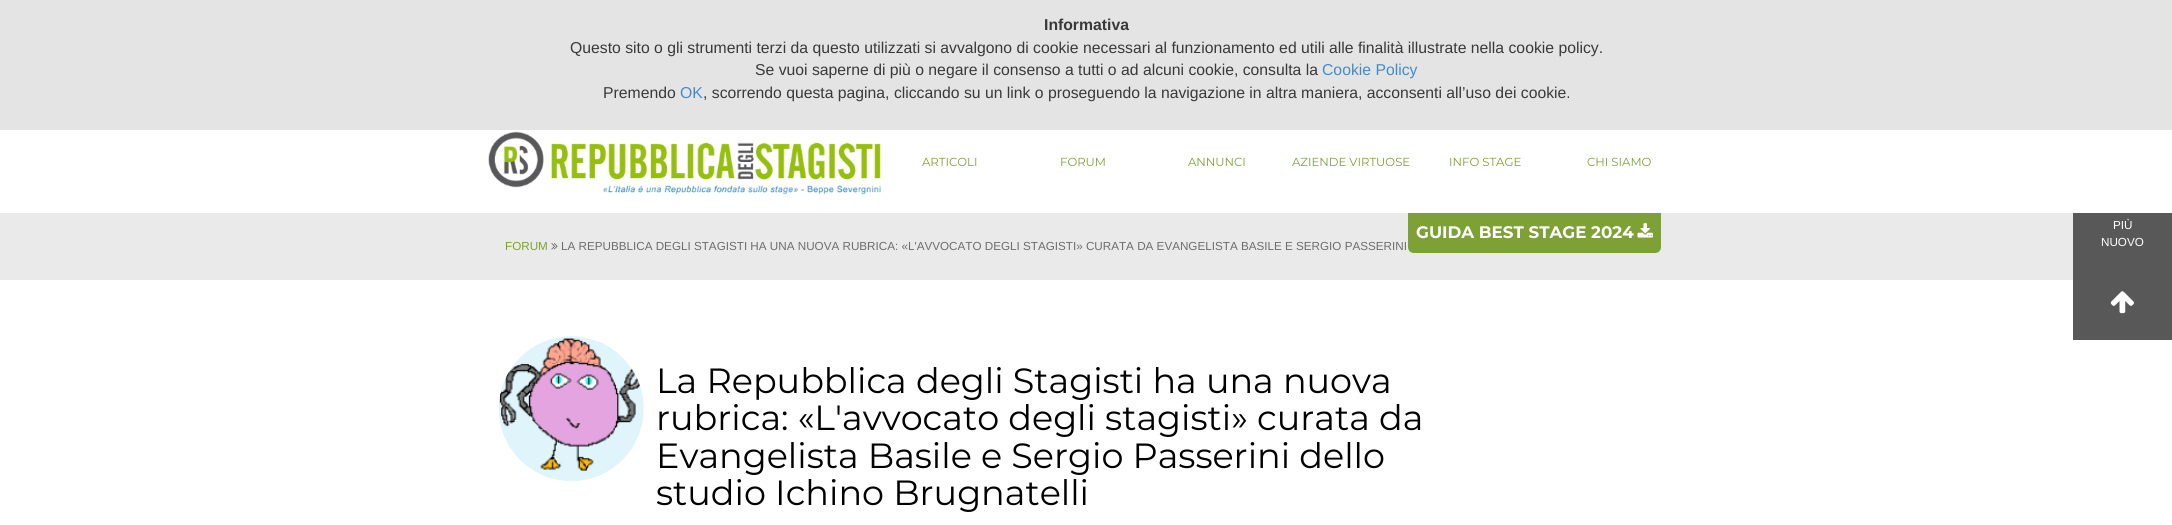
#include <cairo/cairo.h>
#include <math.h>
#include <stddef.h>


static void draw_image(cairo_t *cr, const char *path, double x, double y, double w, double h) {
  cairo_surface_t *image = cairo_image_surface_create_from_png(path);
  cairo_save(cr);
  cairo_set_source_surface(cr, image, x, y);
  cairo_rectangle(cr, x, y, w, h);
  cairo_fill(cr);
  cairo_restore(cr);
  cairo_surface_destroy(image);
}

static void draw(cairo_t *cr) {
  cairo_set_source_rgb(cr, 234 / 255.0, 234 / 255.0, 234 / 255.0);
  cairo_paint(cr);
  cairo_set_source_rgb(cr, 228 / 255.0, 228 / 255.0, 228 / 255.0);
  cairo_rectangle(cr, 0, 0, 2172, 130);
  cairo_fill(cr);
  cairo_set_source_rgb(cr, 1, 1, 1);
  cairo_rectangle(cr, 0, 130, 2172, 83);
  cairo_fill(cr);
  draw_image(cr, "images/1.png", 488, 131, 393, 64);
  cairo_set_source_rgb(cr, 125 / 255.0, 161 / 255.0, 52 / 255.0);
  cairo_new_path(cr);
  cairo_move_to(cr, 1408, 213);
  cairo_line_to(cr, 1661, 213);
  cairo_line_to(cr, 1661, 247);
  cairo_curve_to(cr, 1661, 250.5, 1658.5, 253, 1655, 253);
  cairo_line_to(cr, 1414, 253);
  cairo_curve_to(cr, 1410.5, 253, 1408, 250.5, 1408, 247);
  cairo_close_path(cr);
  cairo_fill(cr);
  draw_image(cr, "images/2.png", 1637, 223, 16, 15);
  draw_image(cr, "images/3.png", 551, 243, 7, 7);
  cairo_set_source_rgb(cr, 1, 1, 1);
  cairo_rectangle(cr, 0, 280, 2172, 245);
  cairo_fill(cr);
  cairo_set_source_rgb(cr, 88 / 255.0, 88 / 255.0, 88 / 255.0);
  cairo_rectangle(cr, 2073, 213, 99, 127);
  cairo_fill(cr);
  draw_image(cr, "images/4.png", 2110, 291, 24, 23);
  draw_image(cr, "images/5.png", 498, 336, 146, 146);
  cairo_select_font_face(cr, "Liberation Sans", CAIRO_FONT_SLANT_NORMAL, CAIRO_FONT_WEIGHT_BOLD);
  cairo_set_font_size(cr, 15.75);
  cairo_set_source_rgb(cr, 57 / 255.0, 57 / 255.0, 57 / 255.0);
  cairo_move_to(cr, 1044, 30);
  cairo_show_text(cr, "Informativa");
  cairo_select_font_face(cr, "Liberation Sans", CAIRO_FONT_SLANT_NORMAL, CAIRO_FONT_WEIGHT_NORMAL);
  cairo_move_to(cr, 570, 53);
  cairo_show_text(cr, "Questo sito o gli strumenti terzi da questo utilizzati si avvalgono di cookie necessari al funzionamento ed utili alle finalità illustrate nella cookie policy.");
  cairo_move_to(cr, 755, 75);
  cairo_show_text(cr, "Se vuoi saperne di più o negare il consenso a tutti o ad alcuni cookie, consulta la");
  cairo_set_source_rgb(cr, 66 / 255.0, 139 / 255.0, 202 / 255.0);
  cairo_move_to(cr, 1322, 75);
  cairo_show_text(cr, "Cookie Policy");
  cairo_set_source_rgb(cr, 57 / 255.0, 57 / 255.0, 57 / 255.0);
  cairo_move_to(cr, 603, 98);
  cairo_show_text(cr, "Premendo");
  cairo_set_source_rgb(cr, 66 / 255.0, 139 / 255.0, 202 / 255.0);
  cairo_move_to(cr, 680, 98);
  cairo_show_text(cr, "OK");
  cairo_set_source_rgb(cr, 57 / 255.0, 57 / 255.0, 57 / 255.0);
  cairo_move_to(cr, 703, 98);
  cairo_show_text(cr, ", scorrendo questa pagina, cliccando su un link o proseguendo la navigazione in altra maniera, acconsenti all’uso dei cookie.");
  cairo_select_font_face(cr, "Montserrat", CAIRO_FONT_SLANT_NORMAL, CAIRO_FONT_WEIGHT_NORMAL);
  cairo_set_font_size(cr, 11.67);
  cairo_set_source_rgb(cr, 125 / 255.0, 161 / 255.0, 52 / 255.0);
  cairo_move_to(cr, 922, 166);
  cairo_show_text(cr, "ARTICOLI");
  cairo_move_to(cr, 1060, 166);
  cairo_show_text(cr, "FORUM");
  cairo_move_to(cr, 1188, 166);
  cairo_show_text(cr, "ANNUNCI");
  cairo_move_to(cr, 1292, 166);
  cairo_show_text(cr, "AZIENDE VIRTUOSE");
  cairo_move_to(cr, 1449, 166);
  cairo_show_text(cr, "INFO STAGE");
  cairo_move_to(cr, 1587, 166);
  cairo_show_text(cr, "CHI SIAMO");
  cairo_select_font_face(cr, "Montserrat", CAIRO_FONT_SLANT_NORMAL, CAIRO_FONT_WEIGHT_BOLD);
  cairo_set_font_size(cr, 16.7);
  cairo_set_source_rgb(cr, 1, 1, 1);
  cairo_move_to(cr, 1416, 238);
  cairo_show_text(cr, "GUIDA BEST STAGE 2024");
  cairo_select_font_face(cr, "Liberation Sans", CAIRO_FONT_SLANT_NORMAL, CAIRO_FONT_WEIGHT_NORMAL);
  cairo_set_font_size(cr, 11.67);
  cairo_set_source_rgb(cr, 125 / 255.0, 161 / 255.0, 52 / 255.0);
  cairo_move_to(cr, 505, 250);
  cairo_show_text(cr, "FORUM");
  cairo_set_source_rgb(cr, 109 / 255.0, 109 / 255.0, 109 / 255.0);
  cairo_move_to(cr, 561, 250);
  cairo_show_text(cr, "LA REPUBBLICA DEGLI STAGISTI HA UNA NUOVA RUBRICA: «L'AVVOCATO DEGLI STAGISTI» CURATA DA EVANGELISTA BASILE E SERGIO PASSERINI");
  cairo_set_source_rgb(cr, 1, 1, 1);
  cairo_move_to(cr, 2113, 229);
  cairo_show_text(cr, "PIÙ");
  cairo_move_to(cr, 2101, 246);
  cairo_show_text(cr, "NUOVO");
  cairo_select_font_face(cr, "Montserrat", CAIRO_FONT_SLANT_NORMAL, CAIRO_FONT_WEIGHT_NORMAL);
  cairo_set_font_size(cr, 35);
  cairo_set_source_rgb(cr, 0, 0, 0);
  cairo_move_to(cr, 656, 393);
  cairo_show_text(cr, "La Repubblica degli Stagisti ha una nuova");
  cairo_move_to(cr, 656, 430);
  cairo_show_text(cr, "rubrica: «L'avvocato degli stagisti» curata da");
  cairo_move_to(cr, 656, 468);
  cairo_show_text(cr, "Evangelista Basile e Sergio Passerini dello");
  cairo_move_to(cr, 656, 505);
  cairo_show_text(cr, "studio Ichino Brugnatelli");
}

int main(void) {
  cairo_surface_t *surface = cairo_image_surface_create(CAIRO_FORMAT_RGB24, 2172, 525);
  cairo_t *cr = cairo_create(surface);
  cairo_font_options_t *options = cairo_font_options_create();
  cairo_font_options_set_hint_metrics(options, CAIRO_HINT_METRICS_OFF);
  cairo_font_options_set_hint_style(options, CAIRO_HINT_STYLE_NONE);
  cairo_set_font_options(cr, options);
  cairo_set_miter_limit(cr, 4);
  draw(cr);
  cairo_surface_write_to_png(surface, "out.png");
  cairo_font_options_destroy(options);
  cairo_destroy(cr);
  cairo_surface_destroy(surface);
  return 0;
}
